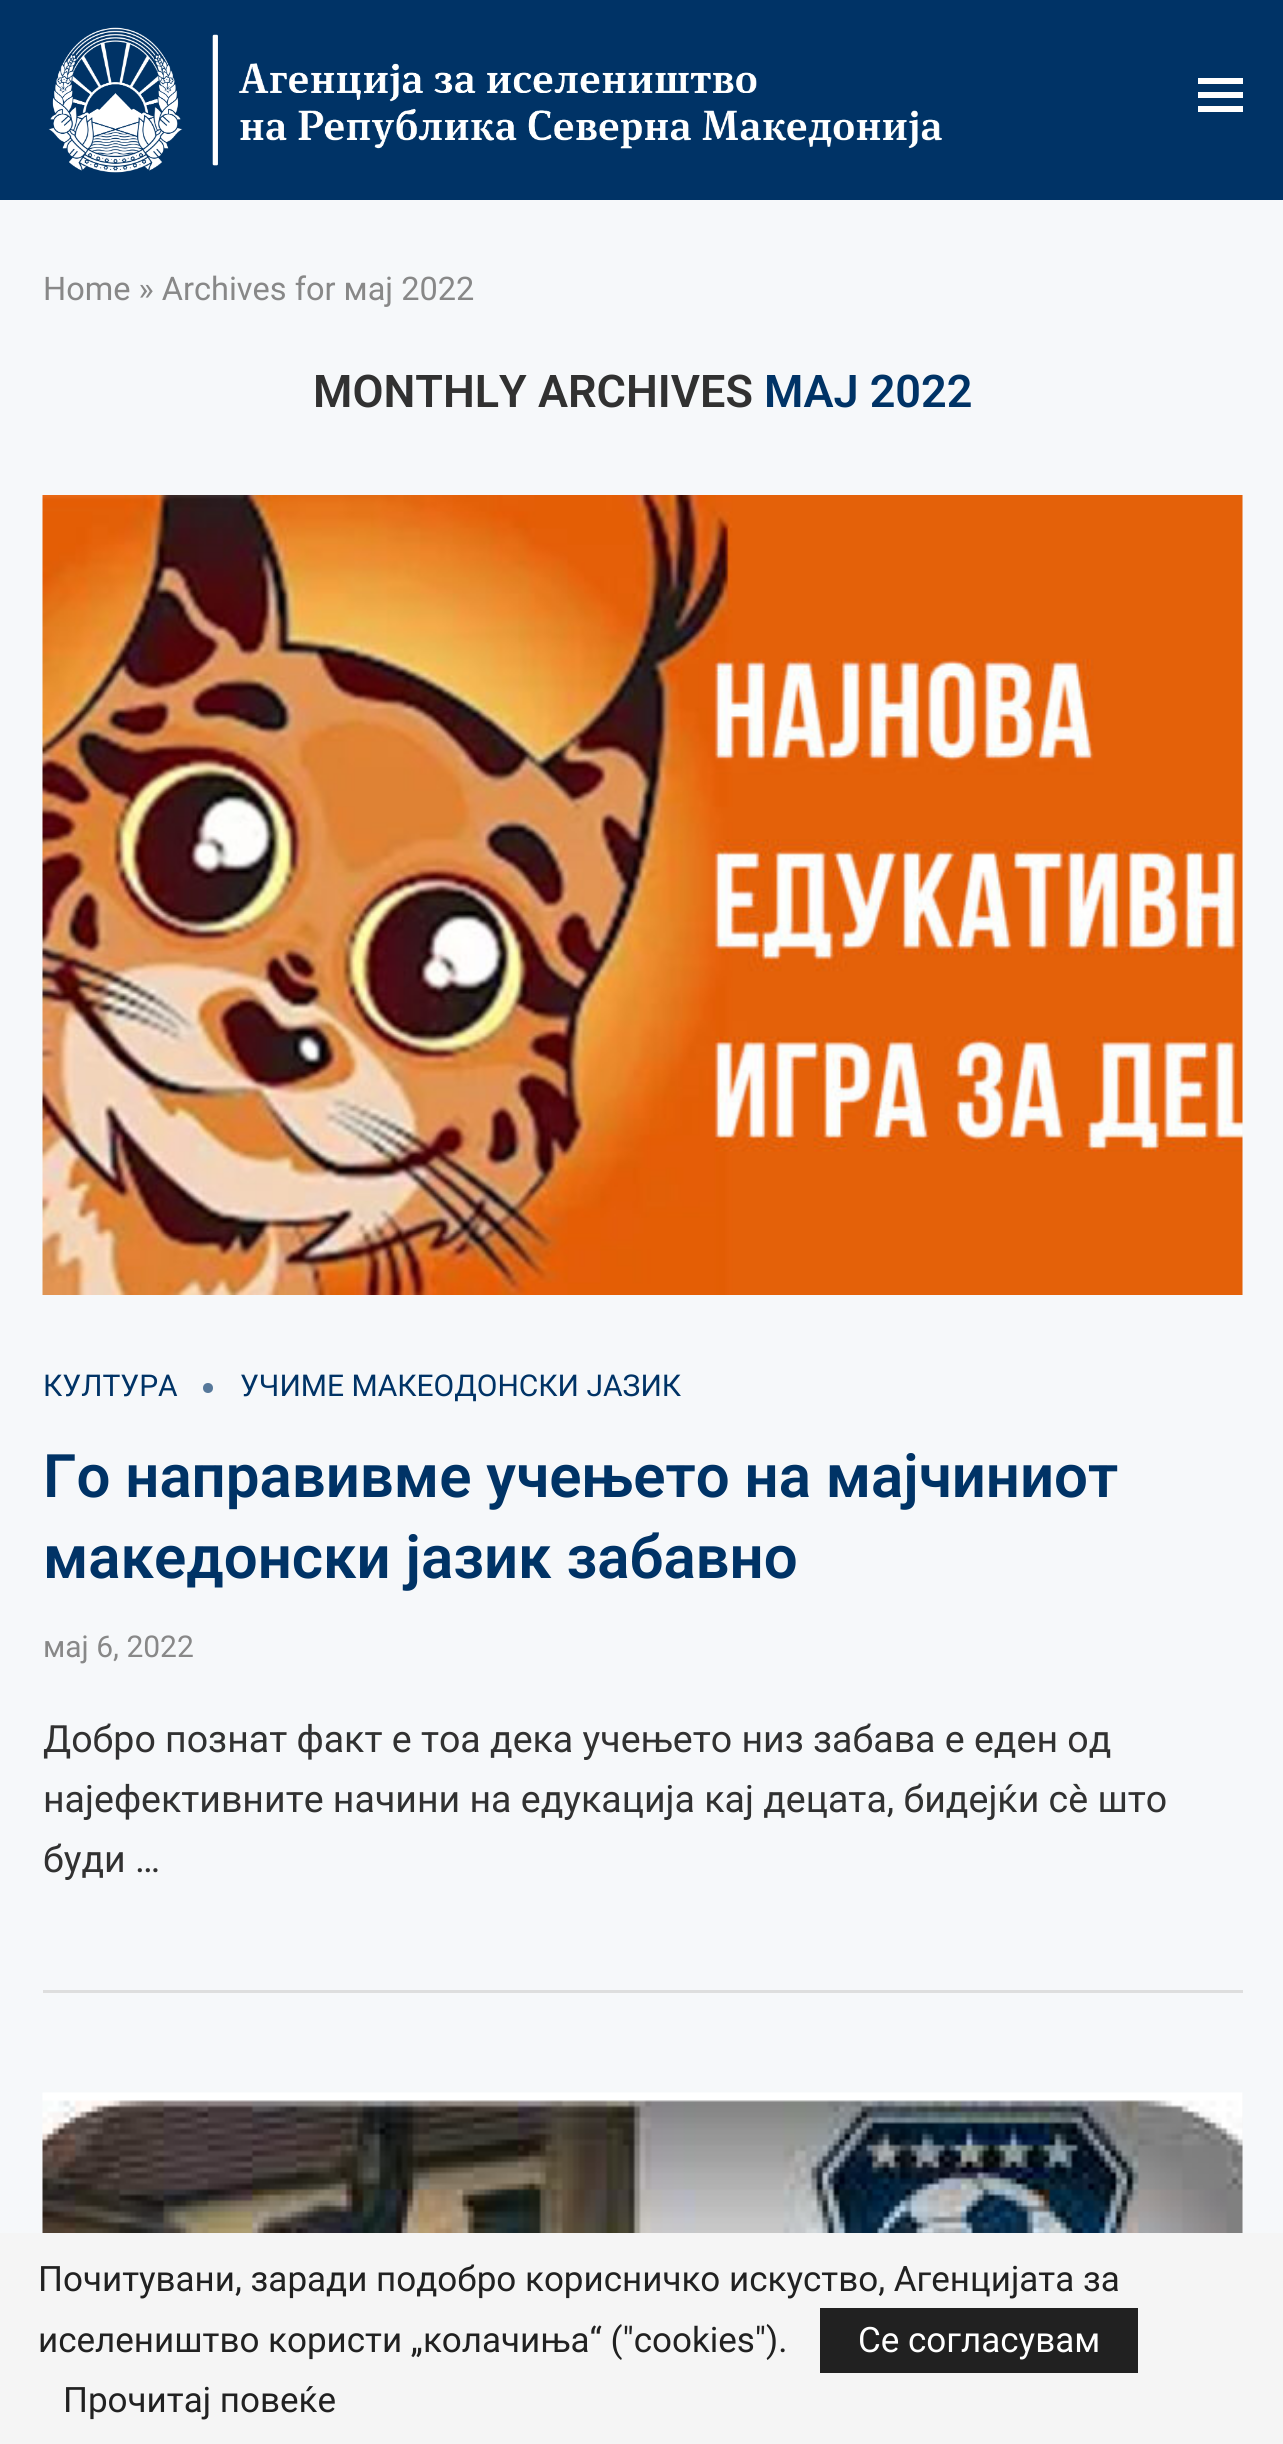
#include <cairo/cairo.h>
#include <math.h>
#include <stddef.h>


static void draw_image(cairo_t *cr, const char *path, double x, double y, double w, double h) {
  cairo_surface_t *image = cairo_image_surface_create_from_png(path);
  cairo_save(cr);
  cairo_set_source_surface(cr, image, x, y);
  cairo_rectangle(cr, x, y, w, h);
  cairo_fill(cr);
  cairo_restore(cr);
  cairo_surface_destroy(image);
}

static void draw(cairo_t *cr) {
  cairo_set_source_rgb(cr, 246 / 255.0, 248 / 255.0, 250 / 255.0);
  cairo_paint(cr);
  cairo_set_source_rgb(cr, 0, 51 / 255.0, 102 / 255.0);
  cairo_rectangle(cr, 0, 0, 1283, 200);
  cairo_fill(cr);
  draw_image(cr, "images/1.png", 48, 27, 894, 146);
  cairo_set_source_rgb(cr, 1, 1, 1);
  cairo_rectangle(cr, 1198, 78, 45, 6);
  cairo_fill(cr);
  cairo_rectangle(cr, 1198, 92, 45, 6);
  cairo_fill(cr);
  cairo_rectangle(cr, 1198, 106, 45, 6);
  cairo_fill(cr);
  cairo_set_source_rgb(cr, 222 / 255.0, 222 / 255.0, 222 / 255.0);
  cairo_rectangle(cr, 43, 1990, 1200, 3);
  cairo_fill(cr);
  cairo_set_source_rgb(cr, 245 / 255.0, 245 / 255.0, 245 / 255.0);
  cairo_rectangle(cr, 1242, 495, 1, 800);
  cairo_fill(cr);
  draw_image(cr, "images/2.png", 42, 495, 1201, 800);
  cairo_set_source_rgb(cr, 86 / 255.0, 120 / 255.0, 154 / 255.0);
  cairo_arc(cr, 208, 1388, 5, 0, 2 * M_PI);
  cairo_fill(cr);
  cairo_set_source_rgb(cr, 245 / 255.0, 245 / 255.0, 245 / 255.0);
  cairo_rectangle(cr, 1242, 2093, 1, 140);
  cairo_fill(cr);
  draw_image(cr, "images/3.png", 42, 2092, 1201, 141);
  cairo_rectangle(cr, 0, 2233, 1283, 211);
  cairo_fill(cr);
  cairo_set_source_rgb(cr, 33 / 255.0, 33 / 255.0, 33 / 255.0);
  cairo_rectangle(cr, 820, 2308, 318, 65);
  cairo_fill(cr);
  cairo_select_font_face(cr, "Roboto", CAIRO_FONT_SLANT_NORMAL, CAIRO_FONT_WEIGHT_NORMAL);
  cairo_set_font_size(cr, 32.5);
  cairo_set_source_rgb(cr, 136 / 255.0, 136 / 255.0, 136 / 255.0);
  cairo_move_to(cr, 43, 300);
  cairo_show_text(cr, "Home » Archives for мај 2022");
  cairo_select_font_face(cr, "Roboto SemiBold", CAIRO_FONT_SLANT_NORMAL, CAIRO_FONT_WEIGHT_NORMAL);
  cairo_set_font_size(cr, 45);
  cairo_set_source_rgb(cr, 49 / 255.0, 49 / 255.0, 49 / 255.0);
  cairo_move_to(cr, 313, 407);
  cairo_show_text(cr, "MONTHLY ARCHIVES");
  cairo_set_source_rgb(cr, 0, 51 / 255.0, 102 / 255.0);
  cairo_move_to(cr, 764, 407);
  cairo_show_text(cr, "МАЈ 2022");
  cairo_select_font_face(cr, "Roboto", CAIRO_FONT_SLANT_NORMAL, CAIRO_FONT_WEIGHT_NORMAL);
  cairo_set_font_size(cr, 30);
  cairo_move_to(cr, 43, 1396);
  cairo_show_text(cr, "КУЛТУРА");
  cairo_move_to(cr, 240, 1396);
  cairo_show_text(cr, "УЧИМЕ МАКЕОДОНСКИ ЈАЗИК");
  cairo_select_font_face(cr, "Roboto SemiBold", CAIRO_FONT_SLANT_NORMAL, CAIRO_FONT_WEIGHT_NORMAL);
  cairo_set_font_size(cr, 60);
  cairo_move_to(cr, 43, 1497);
  cairo_show_text(cr, "Го направивме учењето на мајчиниот");
  cairo_move_to(cr, 43, 1578);
  cairo_show_text(cr, "македонски јазик забавно");
  cairo_select_font_face(cr, "Roboto", CAIRO_FONT_SLANT_NORMAL, CAIRO_FONT_WEIGHT_NORMAL);
  cairo_set_font_size(cr, 30);
  cairo_set_source_rgb(cr, 136 / 255.0, 136 / 255.0, 136 / 255.0);
  cairo_move_to(cr, 43, 1657);
  cairo_show_text(cr, "мај 6, 2022");
  cairo_set_font_size(cr, 37.5);
  cairo_set_source_rgb(cr, 49 / 255.0, 49 / 255.0, 49 / 255.0);
  cairo_move_to(cr, 43, 1752);
  cairo_show_text(cr, "Добро познат факт е тоа дека учењето низ забава е еден од");
  cairo_move_to(cr, 43, 1812);
  cairo_show_text(cr, "најефективните начини на едукација кај децата, бидејќи сè што");
  cairo_move_to(cr, 43, 1872);
  cairo_show_text(cr, "буди …");
  cairo_set_font_size(cr, 35);
  cairo_set_source_rgb(cr, 33 / 255.0, 33 / 255.0, 33 / 255.0);
  cairo_move_to(cr, 38, 2291);
  cairo_show_text(cr, "Почитувани, заради подобро корисничко искуство, Агенцијата за");
  cairo_move_to(cr, 38, 2352);
  cairo_show_text(cr, "иселеништво користи „колачиња“ (\"cookies\").");
  cairo_set_source_rgb(cr, 1, 1, 1);
  cairo_move_to(cr, 858, 2352);
  cairo_show_text(cr, "Се согласувам");
  cairo_set_source_rgb(cr, 33 / 255.0, 33 / 255.0, 33 / 255.0);
  cairo_move_to(cr, 63, 2412);
  cairo_show_text(cr, "Прочитај повеќе");
}

int main(void) {
  cairo_surface_t *surface = cairo_image_surface_create(CAIRO_FORMAT_RGB24, 1283, 2444);
  cairo_t *cr = cairo_create(surface);
  cairo_font_options_t *options = cairo_font_options_create();
  cairo_font_options_set_hint_metrics(options, CAIRO_HINT_METRICS_OFF);
  cairo_font_options_set_hint_style(options, CAIRO_HINT_STYLE_NONE);
  cairo_set_font_options(cr, options);
  cairo_set_miter_limit(cr, 4);
  draw(cr);
  cairo_surface_write_to_png(surface, "out.png");
  cairo_font_options_destroy(options);
  cairo_destroy(cr);
  cairo_surface_destroy(surface);
  return 0;
}
